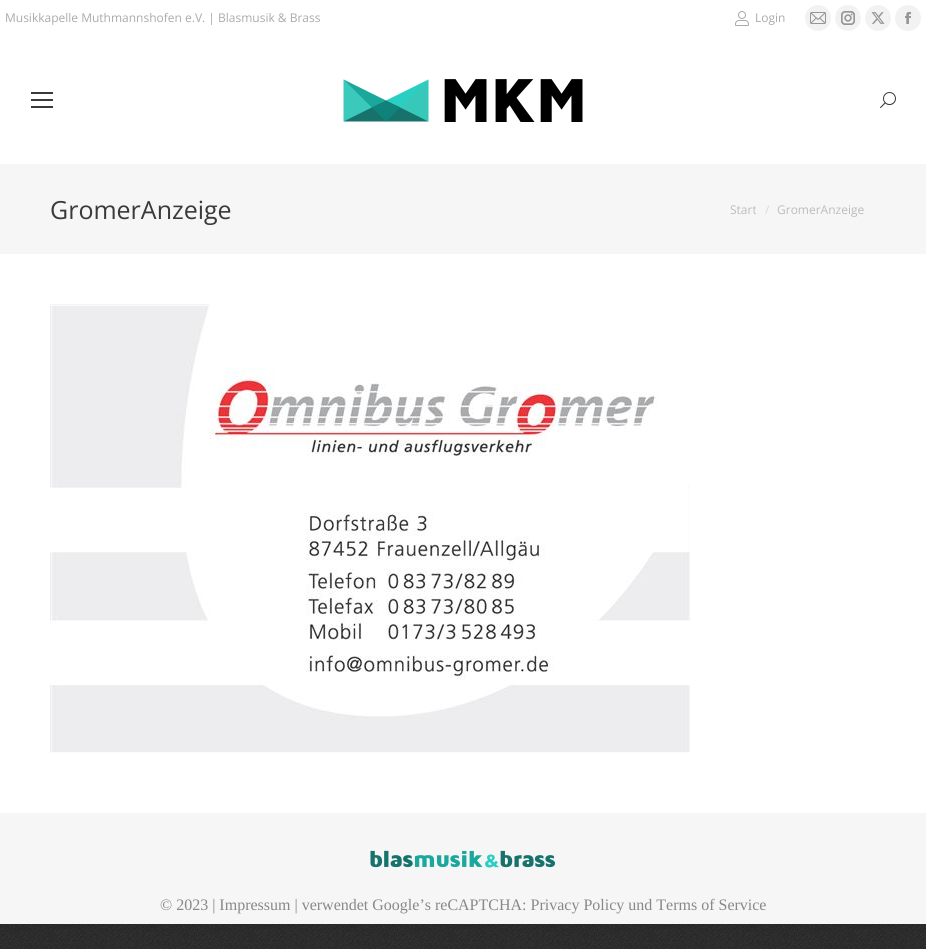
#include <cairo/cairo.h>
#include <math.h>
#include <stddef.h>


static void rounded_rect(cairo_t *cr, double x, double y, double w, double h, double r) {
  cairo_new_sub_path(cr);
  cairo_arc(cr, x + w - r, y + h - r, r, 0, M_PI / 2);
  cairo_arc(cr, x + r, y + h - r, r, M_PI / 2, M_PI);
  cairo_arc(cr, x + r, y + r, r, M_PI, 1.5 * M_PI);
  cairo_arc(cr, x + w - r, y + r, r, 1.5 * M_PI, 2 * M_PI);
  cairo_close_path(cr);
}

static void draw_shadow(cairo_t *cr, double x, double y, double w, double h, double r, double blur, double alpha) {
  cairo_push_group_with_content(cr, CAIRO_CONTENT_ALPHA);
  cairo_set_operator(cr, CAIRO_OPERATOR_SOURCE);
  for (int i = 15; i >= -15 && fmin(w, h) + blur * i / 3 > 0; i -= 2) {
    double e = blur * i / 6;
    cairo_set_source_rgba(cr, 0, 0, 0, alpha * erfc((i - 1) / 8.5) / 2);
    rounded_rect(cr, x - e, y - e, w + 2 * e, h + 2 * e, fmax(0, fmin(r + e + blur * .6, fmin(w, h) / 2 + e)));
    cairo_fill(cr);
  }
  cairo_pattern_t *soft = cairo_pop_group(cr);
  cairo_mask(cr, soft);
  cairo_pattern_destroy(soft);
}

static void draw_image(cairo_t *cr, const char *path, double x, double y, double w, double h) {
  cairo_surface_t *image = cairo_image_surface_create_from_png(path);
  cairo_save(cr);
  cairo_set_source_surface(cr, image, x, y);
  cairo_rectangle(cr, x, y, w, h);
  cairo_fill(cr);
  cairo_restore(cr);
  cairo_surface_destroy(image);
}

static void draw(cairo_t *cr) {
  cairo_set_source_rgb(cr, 1, 1, 1);
  cairo_paint(cr);
  draw_image(cr, "images/1.png", 0, 924, 926, 25);
  cairo_set_source_rgb(cr, 0, 0, 0);
  draw_shadow(cr, 0, 0, 926, 924, 0, 6, 0.15);
  cairo_set_source_rgb(cr, 1, 1, 1);
  cairo_rectangle(cr, 0, 0, 926, 813);
  cairo_fill(cr);
  draw_image(cr, "images/2.png", 735, 11, 14, 15);
  cairo_set_source_rgb(cr, 242 / 255.0, 242 / 255.0, 242 / 255.0);
  cairo_arc(cr, 818, 18, 13, 0, 2 * M_PI);
  cairo_fill(cr);
  draw_image(cr, "images/3.png", 810, 12, 16, 12);
  cairo_arc(cr, 848, 18, 13, 0, 2 * M_PI);
  cairo_fill(cr);
  draw_image(cr, "images/4.png", 841, 11, 14, 14);
  cairo_arc(cr, 878, 18, 13, 0, 2 * M_PI);
  cairo_fill(cr);
  draw_image(cr, "images/5.png", 871, 12, 14, 12);
  cairo_arc(cr, 908, 18, 13, 0, 2 * M_PI);
  cairo_fill(cr);
  draw_image(cr, "images/6.png", 905, 12, 6, 12);
  cairo_set_source_rgb(cr, 58 / 255.0, 58 / 255.0, 58 / 255.0);
  cairo_rectangle(cr, 31, 92, 22, 2);
  cairo_fill(cr);
  cairo_rectangle(cr, 31, 99, 22, 2);
  cairo_fill(cr);
  cairo_rectangle(cr, 31, 106, 22, 2);
  cairo_fill(cr);
  draw_image(cr, "images/7.png", 343, 79, 240, 43);
  draw_image(cr, "images/8.png", 880, 92, 16, 16);
  cairo_set_source_rgb(cr, 246 / 255.0, 246 / 255.0, 246 / 255.0);
  cairo_rectangle(cr, 0, 164, 926, 90);
  cairo_fill(cr);
  draw_image(cr, "images/9.png", 50, 304, 640, 449);
  cairo_rectangle(cr, 0, 813, 926, 111);
  cairo_fill(cr);
  draw_image(cr, "images/10.png", 370, 850, 185, 18);
  cairo_select_font_face(cr, "Open Sans", CAIRO_FONT_SLANT_NORMAL, CAIRO_FONT_WEIGHT_NORMAL);
  cairo_set_font_size(cr, 12);
  cairo_set_source_rgb(cr, 170 / 255.0, 170 / 255.0, 170 / 255.0);
  cairo_move_to(cr, 5, 22);
  cairo_show_text(cr, "Musikkapelle Muthmannshofen e.V. | Blasmusik & Brass");
  cairo_move_to(cr, 755, 22);
  cairo_show_text(cr, "Login");
  cairo_set_font_size(cr, 25);
  cairo_set_source_rgb(cr, 58 / 255.0, 58 / 255.0, 58 / 255.0);
  cairo_move_to(cr, 50, 219);
  cairo_show_text(cr, "GromerAnzeige");
  cairo_set_font_size(cr, 12);
  cairo_set_source_rgb(cr, 188 / 255.0, 188 / 255.0, 188 / 255.0);
  cairo_move_to(cr, 730, 214);
  cairo_show_text(cr, "Start");
  cairo_set_source_rgb(cr, 217 / 255.0, 217 / 255.0, 217 / 255.0);
  cairo_move_to(cr, 765, 214);
  cairo_show_text(cr, "/");
  cairo_set_source_rgb(cr, 188 / 255.0, 188 / 255.0, 188 / 255.0);
  cairo_move_to(cr, 777, 214);
  cairo_show_text(cr, "GromerAnzeige");
  cairo_select_font_face(cr, "Liberation Serif", CAIRO_FONT_SLANT_NORMAL, CAIRO_FONT_WEIGHT_NORMAL);
  cairo_set_font_size(cr, 16);
  cairo_set_source_rgb(cr, 136 / 255.0, 136 / 255.0, 136 / 255.0);
  cairo_move_to(cr, 160, 910);
  cairo_show_text(cr, "© 2023 | Impressum | verwendet Google’s reCAPTCHA: Privacy Policy und Terms of Service");
}

int main(void) {
  cairo_surface_t *surface = cairo_image_surface_create(CAIRO_FORMAT_RGB24, 926, 949);
  cairo_t *cr = cairo_create(surface);
  cairo_font_options_t *options = cairo_font_options_create();
  cairo_font_options_set_hint_metrics(options, CAIRO_HINT_METRICS_OFF);
  cairo_font_options_set_hint_style(options, CAIRO_HINT_STYLE_NONE);
  cairo_set_font_options(cr, options);
  cairo_set_miter_limit(cr, 4);
  draw(cr);
  cairo_surface_write_to_png(surface, "out.png");
  cairo_font_options_destroy(options);
  cairo_destroy(cr);
  cairo_surface_destroy(surface);
  return 0;
}
